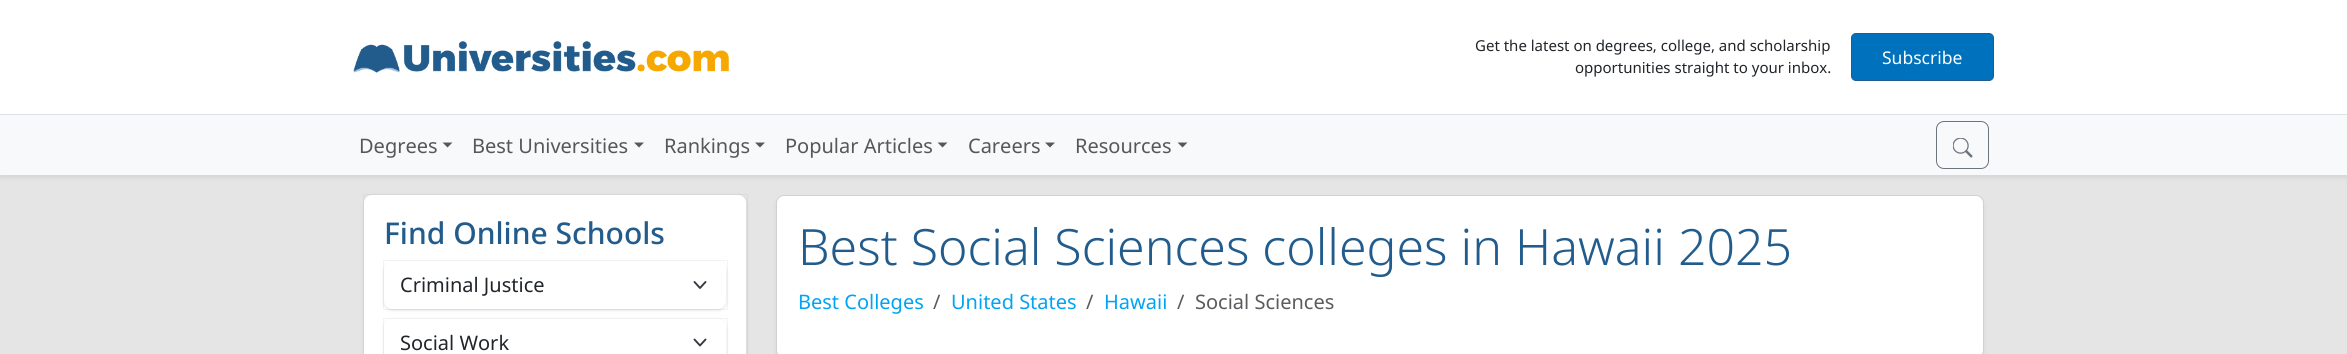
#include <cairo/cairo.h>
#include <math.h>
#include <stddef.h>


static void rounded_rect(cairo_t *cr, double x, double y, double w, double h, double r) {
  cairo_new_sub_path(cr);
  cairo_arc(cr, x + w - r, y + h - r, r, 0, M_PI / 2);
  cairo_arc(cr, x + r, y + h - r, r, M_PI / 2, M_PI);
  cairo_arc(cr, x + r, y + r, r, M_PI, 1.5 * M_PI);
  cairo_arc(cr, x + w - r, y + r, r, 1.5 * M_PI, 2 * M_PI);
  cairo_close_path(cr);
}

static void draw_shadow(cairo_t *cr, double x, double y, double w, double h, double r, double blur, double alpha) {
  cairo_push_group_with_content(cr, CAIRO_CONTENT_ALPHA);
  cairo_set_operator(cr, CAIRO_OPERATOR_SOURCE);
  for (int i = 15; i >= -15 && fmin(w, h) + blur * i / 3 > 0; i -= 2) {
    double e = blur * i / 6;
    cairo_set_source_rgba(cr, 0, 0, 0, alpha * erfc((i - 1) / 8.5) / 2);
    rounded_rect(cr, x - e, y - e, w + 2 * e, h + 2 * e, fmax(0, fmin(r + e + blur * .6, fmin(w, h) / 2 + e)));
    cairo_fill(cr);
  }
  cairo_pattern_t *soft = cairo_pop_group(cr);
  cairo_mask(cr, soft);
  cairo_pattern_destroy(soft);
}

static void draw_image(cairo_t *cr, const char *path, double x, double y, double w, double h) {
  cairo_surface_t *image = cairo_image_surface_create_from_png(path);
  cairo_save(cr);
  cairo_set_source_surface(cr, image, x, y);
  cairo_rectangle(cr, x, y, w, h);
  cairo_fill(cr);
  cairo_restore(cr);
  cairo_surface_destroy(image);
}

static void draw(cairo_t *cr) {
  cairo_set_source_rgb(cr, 229 / 255.0, 229 / 255.0, 229 / 255.0);
  cairo_paint(cr);
  cairo_set_source_rgb(cr, 0, 0, 0);
  draw_shadow(cr, 0, 118, 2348, 60, 0, 2.5, 0.07);
  cairo_set_source_rgb(cr, 1, 1, 1);
  cairo_rectangle(cr, 0, 0, 2347, 114);
  cairo_fill(cr);
  cairo_set_source_rgb(cr, 222 / 255.0, 226 / 255.0, 230 / 255.0);
  cairo_rectangle(cr, 0, 114, 2347, 1);
  cairo_fill(cr);
  draw_image(cr, "images/1.png", 353, 41, 376, 32);
  cairo_set_source_rgb(cr, 0, 113 / 255.0, 188 / 255.0);
  rounded_rect(cr, 1851.5, 33.5, 142, 47, 4.5);
  cairo_fill_preserve(cr);
  cairo_set_source_rgb(cr, 34 / 255.0, 92 / 255.0, 140 / 255.0);
  cairo_set_line_width(cr, 1);
  cairo_stroke(cr);
  cairo_set_source_rgb(cr, 248 / 255.0, 249 / 255.0, 250 / 255.0);
  cairo_rectangle(cr, 0, 115, 2347, 60);
  cairo_fill(cr);
  cairo_set_source_rgb(cr, 87 / 255.0, 87 / 255.0, 88 / 255.0);
  cairo_new_path(cr);
  cairo_move_to(cr, 442.5, 142.5);
  cairo_line_to(cr, 452.5, 142.5);
  cairo_line_to(cr, 447.5, 147.5);
  cairo_close_path(cr);
  cairo_fill(cr);
  cairo_new_path(cr);
  cairo_move_to(cr, 634, 142.5);
  cairo_line_to(cr, 644, 142.5);
  cairo_line_to(cr, 639, 147.5);
  cairo_close_path(cr);
  cairo_fill(cr);
  cairo_new_path(cr);
  cairo_move_to(cr, 755, 142.5);
  cairo_line_to(cr, 765, 142.5);
  cairo_line_to(cr, 760, 147.5);
  cairo_close_path(cr);
  cairo_fill(cr);
  cairo_new_path(cr);
  cairo_move_to(cr, 937.5, 142.5);
  cairo_line_to(cr, 947.5, 142.5);
  cairo_line_to(cr, 942.5, 147.5);
  cairo_close_path(cr);
  cairo_fill(cr);
  cairo_new_path(cr);
  cairo_move_to(cr, 1045, 142.5);
  cairo_line_to(cr, 1055, 142.5);
  cairo_line_to(cr, 1050, 147.5);
  cairo_close_path(cr);
  cairo_fill(cr);
  cairo_new_path(cr);
  cairo_move_to(cr, 1177.5, 142.5);
  cairo_line_to(cr, 1187.5, 142.5);
  cairo_line_to(cr, 1182.5, 147.5);
  cairo_close_path(cr);
  cairo_fill(cr);
  rounded_rect(cr, 1936.5, 121.5, 52, 47, 7.5);
  cairo_set_source_rgb(cr, 108 / 255.0, 117 / 255.0, 125 / 255.0);
  cairo_stroke(cr);
  draw_image(cr, "images/2.png", 1953, 138, 20, 20);
  cairo_set_source_rgb(cr, 0, 0, 0);
  draw_shadow(cr, 364, 196, 382, 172, 8, 2, 0.1);
  cairo_rectangle(cr, 363.5, 194.5, 384, 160);
  cairo_set_source_rgba(cr, 17 / 255.0, 24 / 255.0, 39 / 255.0, 0.05);
  cairo_stroke(cr);
  cairo_set_source_rgb(cr, 1, 1, 1);
  rounded_rect(cr, 364, 195, 382, 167, 8);
  cairo_fill(cr);
  cairo_set_source_rgb(cr, 0, 0, 0);
  draw_shadow(cr, 384, 263, 342, 47, 8, 1, 0.06);
  draw_shadow(cr, 384, 263, 342, 47, 8, 2, 0.1);
  cairo_rectangle(cr, 383.5, 260.5, 344, 49);
  cairo_set_source_rgba(cr, 17 / 255.0, 24 / 255.0, 39 / 255.0, 0.05);
  cairo_stroke(cr);
  cairo_set_source_rgb(cr, 1, 1, 1);
  rounded_rect(cr, 384, 261, 342, 48, 8);
  cairo_fill(cr);
  cairo_new_path(cr);
  cairo_move_to(cr, 694.5, 282);
  cairo_line_to(cr, 700, 288);
  cairo_line_to(cr, 705.5, 282);
  cairo_set_source_rgb(cr, 52 / 255.0, 58 / 255.0, 64 / 255.0);
  cairo_set_line_width(cr, 1.9);
  cairo_set_line_cap(cr, CAIRO_LINE_CAP_ROUND);
  cairo_set_line_join(cr, CAIRO_LINE_JOIN_ROUND);
  cairo_stroke(cr);
  cairo_set_source_rgb(cr, 0, 0, 0);
  draw_shadow(cr, 384, 320, 342, 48, 8, 2, 0.1);
  cairo_rectangle(cr, 383.5, 318.5, 344, 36);
  cairo_set_source_rgba(cr, 17 / 255.0, 24 / 255.0, 39 / 255.0, 0.05);
  cairo_set_line_width(cr, 1);
  cairo_set_line_cap(cr, CAIRO_LINE_CAP_BUTT);
  cairo_set_line_join(cr, CAIRO_LINE_JOIN_MITER);
  cairo_stroke(cr);
  cairo_set_source_rgb(cr, 1, 1, 1);
  rounded_rect(cr, 384, 319, 342, 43, 8);
  cairo_fill(cr);
  cairo_new_path(cr);
  cairo_move_to(cr, 694.5, 339.5);
  cairo_line_to(cr, 700, 345.5);
  cairo_line_to(cr, 705.5, 339.5);
  cairo_set_source_rgb(cr, 52 / 255.0, 58 / 255.0, 64 / 255.0);
  cairo_set_line_width(cr, 1.9);
  cairo_set_line_cap(cr, CAIRO_LINE_CAP_ROUND);
  cairo_set_line_join(cr, CAIRO_LINE_JOIN_ROUND);
  cairo_stroke(cr);
  cairo_set_source_rgb(cr, 0, 0, 0);
  draw_shadow(cr, 776, 198, 1208, 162, 8, 2.5, 0.07);
  cairo_set_source_rgb(cr, 1, 1, 1);
  rounded_rect(cr, 776, 195, 1208, 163, 8);
  cairo_fill(cr);
  rounded_rect(cr, 776.5, 195.5, 1207, 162, 7.5);
  cairo_set_source_rgba(cr, 0, 0, 0, 0.18);
  cairo_set_line_width(cr, 1);
  cairo_set_line_cap(cr, CAIRO_LINE_CAP_BUTT);
  cairo_set_line_join(cr, CAIRO_LINE_JOIN_MITER);
  cairo_stroke(cr);
  cairo_select_font_face(cr, "Noto Sans", CAIRO_FONT_SLANT_NORMAL, CAIRO_FONT_WEIGHT_NORMAL);
  cairo_set_font_size(cr, 15);
  cairo_set_source_rgb(cr, 33 / 255.0, 37 / 255.0, 41 / 255.0);
  cairo_move_to(cr, 1475, 51);
  cairo_show_text(cr, "Get the latest on degrees, college, and scholarship");
  cairo_move_to(cr, 1575, 73);
  cairo_show_text(cr, "opportunities straight to your inbox.");
  cairo_set_font_size(cr, 17.5);
  cairo_set_source_rgb(cr, 1, 1, 1);
  cairo_move_to(cr, 1882, 64);
  cairo_show_text(cr, "Subscribe");
  cairo_set_font_size(cr, 20);
  cairo_set_source_rgb(cr, 87 / 255.0, 87 / 255.0, 88 / 255.0);
  cairo_move_to(cr, 359, 153);
  cairo_show_text(cr, "Degrees");
  cairo_move_to(cr, 472, 153);
  cairo_show_text(cr, "Best Universities");
  cairo_move_to(cr, 664, 153);
  cairo_show_text(cr, "Rankings");
  cairo_move_to(cr, 785, 153);
  cairo_show_text(cr, "Popular Articles");
  cairo_move_to(cr, 968, 153);
  cairo_show_text(cr, "Careers");
  cairo_move_to(cr, 1075, 153);
  cairo_show_text(cr, "Resources");
  cairo_select_font_face(cr, "Noto Sans Medium", CAIRO_FONT_SLANT_NORMAL, CAIRO_FONT_WEIGHT_NORMAL);
  cairo_set_font_size(cr, 30);
  cairo_set_source_rgb(cr, 34 / 255.0, 92 / 255.0, 140 / 255.0);
  cairo_move_to(cr, 384, 244);
  cairo_show_text(cr, "Find Online Schools");
  cairo_select_font_face(cr, "Noto Sans", CAIRO_FONT_SLANT_NORMAL, CAIRO_FONT_WEIGHT_NORMAL);
  cairo_set_font_size(cr, 20);
  cairo_set_source_rgb(cr, 33 / 255.0, 37 / 255.0, 41 / 255.0);
  cairo_move_to(cr, 400, 292);
  cairo_show_text(cr, "Criminal Justice");
  cairo_move_to(cr, 400, 350);
  cairo_show_text(cr, "Social Work");
  cairo_select_font_face(cr, "Noto Sans Light", CAIRO_FONT_SLANT_NORMAL, CAIRO_FONT_WEIGHT_NORMAL);
  cairo_set_font_size(cr, 50);
  cairo_set_source_rgb(cr, 34 / 255.0, 92 / 255.0, 140 / 255.0);
  cairo_move_to(cr, 798, 265);
  cairo_show_text(cr, "Best Social Sciences colleges in Hawaii 2025");
  cairo_select_font_face(cr, "Noto Sans", CAIRO_FONT_SLANT_NORMAL, CAIRO_FONT_WEIGHT_NORMAL);
  cairo_set_font_size(cr, 20);
  cairo_set_source_rgb(cr, 0, 164 / 255.0, 243 / 255.0);
  cairo_move_to(cr, 798, 309);
  cairo_show_text(cr, "Best Colleges");
  cairo_set_source_rgb(cr, 89 / 255.0, 92 / 255.0, 95 / 255.0);
  cairo_move_to(cr, 933, 309);
  cairo_show_text(cr, "/");
  cairo_set_source_rgb(cr, 0, 164 / 255.0, 243 / 255.0);
  cairo_move_to(cr, 951, 309);
  cairo_show_text(cr, "United States");
  cairo_set_source_rgb(cr, 89 / 255.0, 92 / 255.0, 95 / 255.0);
  cairo_move_to(cr, 1086, 309);
  cairo_show_text(cr, "/");
  cairo_set_source_rgb(cr, 0, 164 / 255.0, 243 / 255.0);
  cairo_move_to(cr, 1104, 309);
  cairo_show_text(cr, "Hawaii");
  cairo_set_source_rgb(cr, 89 / 255.0, 92 / 255.0, 95 / 255.0);
  cairo_move_to(cr, 1177, 309);
  cairo_show_text(cr, "/");
  cairo_move_to(cr, 1195, 309);
  cairo_show_text(cr, "Social Sciences");
}

int main(void) {
  cairo_surface_t *surface = cairo_image_surface_create(CAIRO_FORMAT_RGB24, 2347, 354);
  cairo_t *cr = cairo_create(surface);
  cairo_font_options_t *options = cairo_font_options_create();
  cairo_font_options_set_hint_metrics(options, CAIRO_HINT_METRICS_OFF);
  cairo_font_options_set_hint_style(options, CAIRO_HINT_STYLE_NONE);
  cairo_set_font_options(cr, options);
  cairo_set_miter_limit(cr, 4);
  draw(cr);
  cairo_surface_write_to_png(surface, "out.png");
  cairo_font_options_destroy(options);
  cairo_destroy(cr);
  cairo_surface_destroy(surface);
  return 0;
}
